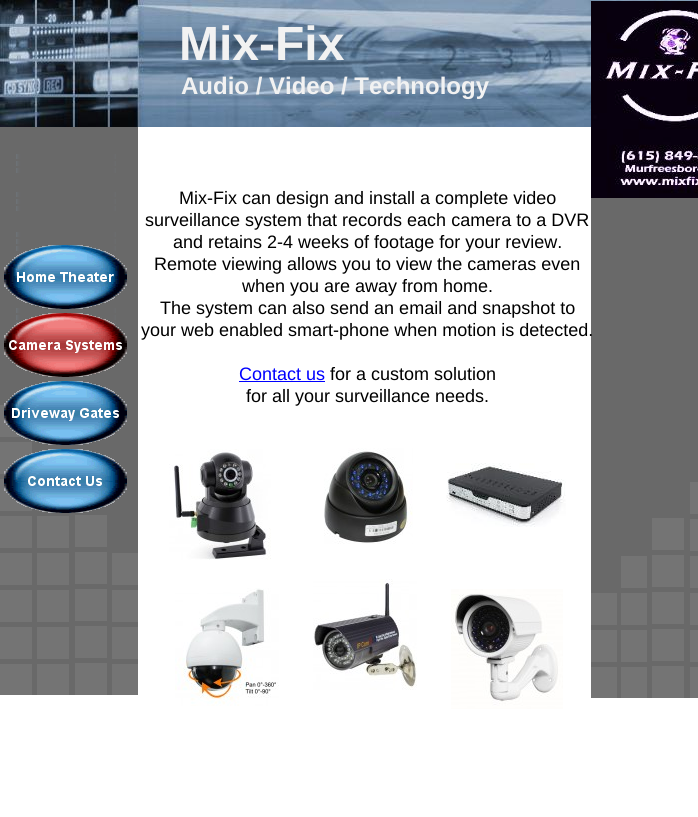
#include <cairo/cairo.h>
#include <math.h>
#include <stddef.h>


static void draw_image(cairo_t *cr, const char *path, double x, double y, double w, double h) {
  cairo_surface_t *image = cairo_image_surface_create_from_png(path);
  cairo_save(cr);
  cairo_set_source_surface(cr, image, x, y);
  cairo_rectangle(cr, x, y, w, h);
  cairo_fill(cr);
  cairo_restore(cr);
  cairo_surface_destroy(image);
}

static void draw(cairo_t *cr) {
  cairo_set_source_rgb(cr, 1, 1, 1);
  cairo_paint(cr);
  draw_image(cr, "images/1.png", 0, 0, 698, 127);
  draw_image(cr, "images/2.png", 591, 1, 107, 197);
  draw_image(cr, "images/3.png", 0, 127, 138, 568);
  cairo_set_source_rgb(cr, 0, 0, 1);
  cairo_rectangle(cr, 239, 381, 86, 1);
  cairo_fill(cr);
  draw_image(cr, "images/4.png", 591, 198, 107, 500);
  draw_image(cr, "images/5.png", 4, 245, 123, 64);
  draw_image(cr, "images/6.png", 4, 313, 123, 64);
  draw_image(cr, "images/7.png", 4, 381, 123, 64);
  draw_image(cr, "images/8.png", 4, 449, 123, 64);
  draw_image(cr, "images/9.png", 169, 449, 102, 111);
  draw_image(cr, "images/10.png", 324, 448, 89, 96);
  draw_image(cr, "images/11.png", 446, 463, 120, 64);
  draw_image(cr, "images/12.png", 175, 588, 104, 118);
  draw_image(cr, "images/13.png", 313, 579, 104, 111);
  draw_image(cr, "images/14.png", 451, 589, 112, 120);
  cairo_select_font_face(cr, "Liberation Sans", CAIRO_FONT_SLANT_NORMAL, CAIRO_FONT_WEIGHT_BOLD);
  cairo_set_font_size(cr, 48);
  cairo_set_source_rgb(cr, 242 / 255.0, 242 / 255.0, 242 / 255.0);
  cairo_move_to(cr, 179, 60);
  cairo_show_text(cr, "Mix-Fix");
  cairo_set_font_size(cr, 24);
  cairo_move_to(cr, 181, 94);
  cairo_show_text(cr, "Audio / Video / Technology");
  cairo_select_font_face(cr, "Liberation Sans", CAIRO_FONT_SLANT_NORMAL, CAIRO_FONT_WEIGHT_NORMAL);
  cairo_set_font_size(cr, 18);
  cairo_set_source_rgb(cr, 0, 0, 0);
  cairo_move_to(cr, 179, 204);
  cairo_show_text(cr, "Mix-Fix can design and install a complete video");
  cairo_move_to(cr, 145, 226);
  cairo_show_text(cr, "surveillance system that records each camera to a DVR");
  cairo_move_to(cr, 173, 248);
  cairo_show_text(cr, "and retains 2-4 weeks of footage for your review.");
  cairo_move_to(cr, 154, 270);
  cairo_show_text(cr, "Remote viewing allows you to view the cameras even");
  cairo_move_to(cr, 242, 292);
  cairo_show_text(cr, "when you are away from home.");
  cairo_move_to(cr, 160, 314);
  cairo_show_text(cr, "The system can also send an email and snapshot to");
  cairo_move_to(cr, 141, 336);
  cairo_show_text(cr, "your web enabled smart-phone when motion is detected.");
  cairo_set_source_rgb(cr, 0, 0, 1);
  cairo_move_to(cr, 239, 380);
  cairo_show_text(cr, "Contact us");
  cairo_set_source_rgb(cr, 0, 0, 0);
  cairo_move_to(cr, 330, 380);
  cairo_show_text(cr, "for a custom solution");
  cairo_move_to(cr, 246, 402);
  cairo_show_text(cr, "for all your surveillance needs.");
}

int main(void) {
  cairo_surface_t *surface = cairo_image_surface_create(CAIRO_FORMAT_RGB24, 698, 817);
  cairo_t *cr = cairo_create(surface);
  cairo_font_options_t *options = cairo_font_options_create();
  cairo_font_options_set_hint_metrics(options, CAIRO_HINT_METRICS_OFF);
  cairo_font_options_set_hint_style(options, CAIRO_HINT_STYLE_NONE);
  cairo_set_font_options(cr, options);
  cairo_set_miter_limit(cr, 4);
  draw(cr);
  cairo_surface_write_to_png(surface, "out.png");
  cairo_font_options_destroy(options);
  cairo_destroy(cr);
  cairo_surface_destroy(surface);
  return 0;
}
